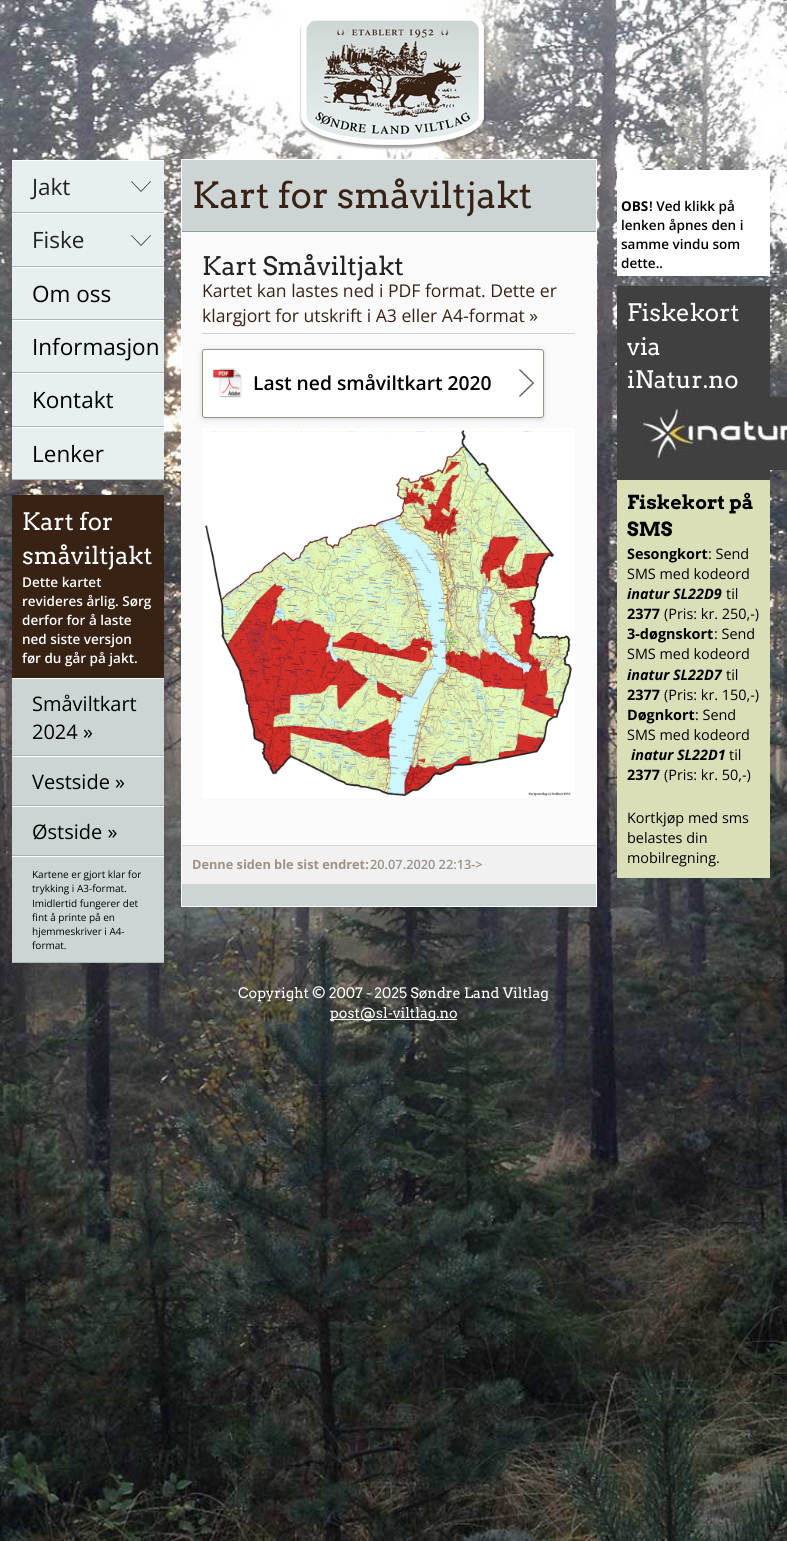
#include <cairo/cairo.h>
#include <math.h>
#include <stddef.h>


static void rounded_rect(cairo_t *cr, double x, double y, double w, double h, double r) {
  cairo_new_sub_path(cr);
  cairo_arc(cr, x + w - r, y + h - r, r, 0, M_PI / 2);
  cairo_arc(cr, x + r, y + h - r, r, M_PI / 2, M_PI);
  cairo_arc(cr, x + r, y + r, r, M_PI, 1.5 * M_PI);
  cairo_arc(cr, x + w - r, y + r, r, 1.5 * M_PI, 2 * M_PI);
  cairo_close_path(cr);
}

static void draw_shadow(cairo_t *cr, double x, double y, double w, double h, double r, double blur, double alpha) {
  cairo_push_group_with_content(cr, CAIRO_CONTENT_ALPHA);
  cairo_set_operator(cr, CAIRO_OPERATOR_SOURCE);
  for (int i = 15; i >= -15 && fmin(w, h) + blur * i / 3 > 0; i -= 2) {
    double e = blur * i / 6;
    cairo_set_source_rgba(cr, 0, 0, 0, alpha * erfc((i - 1) / 8.5) / 2);
    rounded_rect(cr, x - e, y - e, w + 2 * e, h + 2 * e, fmax(0, fmin(r + e + blur * .6, fmin(w, h) / 2 + e)));
    cairo_fill(cr);
  }
  cairo_pattern_t *soft = cairo_pop_group(cr);
  cairo_mask(cr, soft);
  cairo_pattern_destroy(soft);
}

static void draw_image(cairo_t *cr, const char *path, double x, double y, double w, double h) {
  cairo_surface_t *image = cairo_image_surface_create_from_png(path);
  cairo_save(cr);
  cairo_set_source_surface(cr, image, x, y);
  cairo_rectangle(cr, x, y, w, h);
  cairo_fill(cr);
  cairo_restore(cr);
  cairo_surface_destroy(image);
}

static void draw(cairo_t *cr) {
  cairo_set_source_rgb(cr, 1, 1, 1);
  cairo_paint(cr);
  draw_image(cr, "images/1.png", 0, 0, 787, 1541);
  draw_image(cr, "images/2.png", 299, 15, 187, 135);
  cairo_set_source_rgb(cr, 232 / 255.0, 239 / 255.0, 240 / 255.0);
  cairo_rectangle(cr, 12, 161, 152, 318);
  cairo_fill(cr);
  draw_image(cr, "images/3.png", 131, 181, 20, 11);
  cairo_set_source_rgb(cr, 1, 1, 1);
  cairo_rectangle(cr, 12, 160, 152, 1);
  cairo_fill(cr);
  cairo_set_source_rgb(cr, 173 / 255.0, 180 / 255.0, 181 / 255.0);
  cairo_rectangle(cr, 12, 212, 152, 1);
  cairo_fill(cr);
  draw_image(cr, "images/3.png", 131, 235, 20, 11);
  cairo_set_source_rgb(cr, 1, 1, 1);
  cairo_rectangle(cr, 12, 213, 152, 1);
  cairo_fill(cr);
  cairo_set_source_rgb(cr, 173 / 255.0, 180 / 255.0, 181 / 255.0);
  cairo_rectangle(cr, 12, 266, 152, 1);
  cairo_fill(cr);
  cairo_set_source_rgb(cr, 1, 1, 1);
  cairo_rectangle(cr, 12, 267, 152, 1);
  cairo_fill(cr);
  cairo_set_source_rgb(cr, 173 / 255.0, 180 / 255.0, 181 / 255.0);
  cairo_rectangle(cr, 12, 319, 152, 1);
  cairo_fill(cr);
  cairo_set_source_rgb(cr, 1, 1, 1);
  cairo_rectangle(cr, 12, 320, 152, 1);
  cairo_fill(cr);
  cairo_set_source_rgb(cr, 173 / 255.0, 180 / 255.0, 181 / 255.0);
  cairo_rectangle(cr, 12, 372, 152, 1);
  cairo_fill(cr);
  cairo_set_source_rgb(cr, 1, 1, 1);
  cairo_rectangle(cr, 12, 373, 152, 1);
  cairo_fill(cr);
  cairo_set_source_rgb(cr, 173 / 255.0, 180 / 255.0, 181 / 255.0);
  cairo_rectangle(cr, 12, 426, 152, 1);
  cairo_fill(cr);
  cairo_set_source_rgb(cr, 1, 1, 1);
  cairo_rectangle(cr, 12, 427, 152, 1);
  cairo_fill(cr);
  cairo_set_source_rgb(cr, 173 / 255.0, 180 / 255.0, 181 / 255.0);
  cairo_rectangle(cr, 12, 479, 152, 1);
  cairo_fill(cr);
  cairo_set_source_rgb(cr, 56 / 255.0, 34 / 255.0, 20 / 255.0);
  cairo_rectangle(cr, 12, 495, 152, 183);
  cairo_fill(cr);
  cairo_set_source_rgb(cr, 205 / 255.0, 213 / 255.0, 212 / 255.0);
  cairo_rectangle(cr, 12, 679, 152, 283);
  cairo_fill(cr);
  cairo_set_source_rgb(cr, 1, 1, 1);
  cairo_rectangle(cr, 12, 678, 152, 1);
  cairo_fill(cr);
  cairo_set_source_rgb(cr, 173 / 255.0, 180 / 255.0, 181 / 255.0);
  cairo_rectangle(cr, 12, 755, 152, 1);
  cairo_fill(cr);
  cairo_set_source_rgb(cr, 1, 1, 1);
  cairo_rectangle(cr, 12, 756, 152, 1);
  cairo_fill(cr);
  cairo_set_source_rgb(cr, 173 / 255.0, 180 / 255.0, 181 / 255.0);
  cairo_rectangle(cr, 12, 805, 152, 1);
  cairo_fill(cr);
  cairo_set_source_rgb(cr, 1, 1, 1);
  cairo_rectangle(cr, 12, 806, 152, 1);
  cairo_fill(cr);
  cairo_set_source_rgb(cr, 173 / 255.0, 180 / 255.0, 181 / 255.0);
  cairo_rectangle(cr, 12, 855, 152, 1);
  cairo_fill(cr);
  cairo_set_source_rgb(cr, 1, 1, 1);
  cairo_rectangle(cr, 12, 856, 152, 1);
  cairo_fill(cr);
  cairo_set_source_rgb(cr, 173 / 255.0, 180 / 255.0, 181 / 255.0);
  cairo_rectangle(cr, 12, 962, 152, 1);
  cairo_fill(cr);
  cairo_set_source_rgb(cr, 205 / 255.0, 213 / 255.0, 212 / 255.0);
  cairo_rectangle(cr, 182, 160, 414, 71);
  cairo_fill(cr);
  cairo_set_source_rgb(cr, 139 / 255.0, 158 / 255.0, 156 / 255.0);
  cairo_rectangle(cr, 182, 231, 414, 1);
  cairo_fill(cr);
  cairo_set_source_rgb(cr, 250 / 255.0, 250 / 255.0, 250 / 255.0);
  cairo_rectangle(cr, 182, 232, 414, 613);
  cairo_fill(cr);
  cairo_set_source_rgb(cr, 205 / 255.0, 213 / 255.0, 212 / 255.0);
  cairo_rectangle(cr, 202, 333, 373, 1);
  cairo_fill(cr);
  cairo_set_source_rgb(cr, 50 / 255.0, 50 / 255.0, 50 / 255.0);
  draw_shadow(cr, 202, 350, 342, 69, 3, 2.5, 0.2);
  cairo_set_source_rgb(cr, 1, 1, 1);
  rounded_rect(cr, 202, 349, 342, 69, 3);
  cairo_fill(cr);
  draw_image(cr, "images/4.png", 213, 368, 321, 30);
  rounded_rect(cr, 202.5, 349.5, 341, 68, 2.5);
  cairo_set_source_rgb(cr, 157 / 255.0, 145 / 255.0, 137 / 255.0);
  cairo_set_line_width(cr, 1);
  cairo_stroke(cr);
  draw_image(cr, "images/5.png", 202, 428, 373, 371);
  cairo_set_source_rgb(cr, 241 / 255.0, 241 / 255.0, 241 / 255.0);
  cairo_rectangle(cr, 182, 846, 414, 38);
  cairo_fill(cr);
  cairo_set_source_rgb(cr, 205 / 255.0, 213 / 255.0, 212 / 255.0);
  cairo_rectangle(cr, 182, 845, 414, 1);
  cairo_fill(cr);
  cairo_rectangle(cr, 182, 884, 414, 22);
  cairo_fill(cr);
  cairo_rectangle(cr, 181.5, 159.5, 415, 747);
  cairo_set_source_rgb(cr, 1, 1, 1);
  cairo_stroke(cr);
  cairo_rectangle(cr, 617, 170, 153, 106);
  cairo_fill(cr);
  cairo_set_source_rgb(cr, 64 / 255.0, 64 / 255.0, 64 / 255.0);
  cairo_rectangle(cr, 617, 286, 153, 194);
  cairo_fill(cr);
  draw_image(cr, "images/6.png", 643, 397, 144, 73);
  cairo_set_source_rgb(cr, 219 / 255.0, 223 / 255.0, 183 / 255.0);
  cairo_rectangle(cr, 617, 480, 153, 398);
  cairo_fill(cr);
  cairo_set_source_rgb(cr, 1, 1, 1);
  cairo_rectangle(cr, 330, 1019, 127, 1);
  cairo_fill(cr);
  cairo_select_font_face(cr, "Open Sans", CAIRO_FONT_SLANT_NORMAL, CAIRO_FONT_WEIGHT_NORMAL);
  cairo_set_font_size(cr, 22.5);
  cairo_set_source_rgb(cr, 34 / 255.0, 34 / 255.0, 34 / 255.0);
  cairo_move_to(cr, 32, 195);
  cairo_show_text(cr, "Jakt");
  cairo_move_to(cr, 32, 248);
  cairo_show_text(cr, "Fiske");
  cairo_set_source_rgb(cr, 0, 0, 0);
  cairo_move_to(cr, 32, 302);
  cairo_show_text(cr, "Om oss");
  cairo_move_to(cr, 32, 355);
  cairo_show_text(cr, "Informasjon");
  cairo_move_to(cr, 32, 408);
  cairo_show_text(cr, "Kontakt");
  cairo_move_to(cr, 32, 462);
  cairo_show_text(cr, "Lenker");
  cairo_select_font_face(cr, "Arvo", CAIRO_FONT_SLANT_NORMAL, CAIRO_FONT_WEIGHT_NORMAL);
  cairo_set_font_size(cr, 24);
  cairo_set_source_rgb(cr, 1, 1, 1);
  cairo_move_to(cr, 22, 530);
  cairo_show_text(cr, "Kart for");
  cairo_move_to(cr, 22, 564);
  cairo_show_text(cr, "småviltjakt");
  cairo_select_font_face(cr, "Open Sans SemiBold", CAIRO_FONT_SLANT_NORMAL, CAIRO_FONT_WEIGHT_NORMAL);
  cairo_set_font_size(cr, 13.5);
  cairo_move_to(cr, 22, 587);
  cairo_show_text(cr, "Dette kartet");
  cairo_move_to(cr, 22, 606);
  cairo_show_text(cr, "revideres årlig. Sørg");
  cairo_move_to(cr, 22, 625);
  cairo_show_text(cr, "derfor for å laste");
  cairo_move_to(cr, 22, 644);
  cairo_show_text(cr, "ned siste versjon");
  cairo_move_to(cr, 22, 663);
  cairo_show_text(cr, "før du går på jakt.");
  cairo_select_font_face(cr, "Open Sans", CAIRO_FONT_SLANT_NORMAL, CAIRO_FONT_WEIGHT_NORMAL);
  cairo_set_font_size(cr, 20);
  cairo_set_source_rgb(cr, 0, 0, 0);
  cairo_move_to(cr, 32, 711);
  cairo_show_text(cr, "Småviltkart");
  cairo_move_to(cr, 32, 739);
  cairo_show_text(cr, "2024 »");
  cairo_move_to(cr, 32, 789);
  cairo_show_text(cr, "Vestside »");
  cairo_move_to(cr, 32, 839);
  cairo_show_text(cr, "Østside »");
  cairo_set_font_size(cr, 10);
  cairo_move_to(cr, 32, 878);
  cairo_show_text(cr, "Kartene er gjort klar for");
  cairo_move_to(cr, 32, 892);
  cairo_show_text(cr, "trykking i A3-format.");
  cairo_move_to(cr, 32, 907);
  cairo_show_text(cr, "Imidlertid fungerer det");
  cairo_move_to(cr, 32, 921);
  cairo_show_text(cr, "fint å printe på en");
  cairo_move_to(cr, 32, 935);
  cairo_show_text(cr, "hjemmeskriver i A4-");
  cairo_move_to(cr, 32, 949);
  cairo_show_text(cr, "format.");
  cairo_select_font_face(cr, "Arvo", CAIRO_FONT_SLANT_NORMAL, CAIRO_FONT_WEIGHT_NORMAL);
  cairo_set_font_size(cr, 36);
  cairo_set_source_rgb(cr, 56 / 255.0, 34 / 255.0, 22 / 255.0);
  cairo_move_to(cr, 192, 208);
  cairo_show_text(cr, "Kart for småviltjakt");
  cairo_set_font_size(cr, 25.5);
  cairo_set_source_rgb(cr, 34 / 255.0, 34 / 255.0, 34 / 255.0);
  cairo_move_to(cr, 202, 275);
  cairo_show_text(cr, "Kart Småviltjakt");
  cairo_select_font_face(cr, "Open Sans", CAIRO_FONT_SLANT_NORMAL, CAIRO_FONT_WEIGHT_NORMAL);
  cairo_set_font_size(cr, 17.6);
  cairo_set_source_rgb(cr, 56 / 255.0, 34 / 255.0, 22 / 255.0);
  cairo_move_to(cr, 202, 297);
  cairo_show_text(cr, "Kartet kan lastes ned i PDF format. Dette er");
  cairo_move_to(cr, 202, 322);
  cairo_show_text(cr, "klargjort for utskrift i A3 eller A4-format »");
  cairo_select_font_face(cr, "Open Sans SemiBold", CAIRO_FONT_SLANT_NORMAL, CAIRO_FONT_WEIGHT_NORMAL);
  cairo_set_font_size(cr, 19.25);
  cairo_set_source_rgb(cr, 0, 0, 0);
  cairo_move_to(cr, 253, 390);
  cairo_show_text(cr, "Last ned småviltkart 2020");
  cairo_select_font_face(cr, "Open Sans", CAIRO_FONT_SLANT_NORMAL, CAIRO_FONT_WEIGHT_BOLD);
  cairo_set_font_size(cr, 12.75);
  cairo_set_source_rgb(cr, 157 / 255.0, 145 / 255.0, 137 / 255.0);
  cairo_move_to(cr, 192, 869);
  cairo_show_text(cr, "Denne siden ble sist endret:");
  cairo_select_font_face(cr, "Open Sans SemiBold", CAIRO_FONT_SLANT_NORMAL, CAIRO_FONT_WEIGHT_NORMAL);
  cairo_move_to(cr, 370, 869);
  cairo_show_text(cr, "20.07.2020 22:13->");
  cairo_select_font_face(cr, "Open Sans", CAIRO_FONT_SLANT_NORMAL, CAIRO_FONT_WEIGHT_BOLD);
  cairo_set_font_size(cr, 13.5);
  cairo_set_source_rgb(cr, 0, 0, 0);
  cairo_move_to(cr, 621, 211);
  cairo_show_text(cr, "OBS");
  cairo_select_font_face(cr, "Open Sans SemiBold", CAIRO_FONT_SLANT_NORMAL, CAIRO_FONT_WEIGHT_NORMAL);
  cairo_move_to(cr, 649, 211);
  cairo_show_text(cr, "! Ved klikk på");
  cairo_move_to(cr, 621, 230);
  cairo_show_text(cr, "lenken åpnes den i");
  cairo_move_to(cr, 621, 249);
  cairo_show_text(cr, "samme vindu som");
  cairo_move_to(cr, 621, 268);
  cairo_show_text(cr, "dette..");
  cairo_select_font_face(cr, "Arvo", CAIRO_FONT_SLANT_NORMAL, CAIRO_FONT_WEIGHT_NORMAL);
  cairo_set_font_size(cr, 24);
  cairo_set_source_rgb(cr, 1, 1, 1);
  cairo_move_to(cr, 627, 321);
  cairo_show_text(cr, "Fiskekort");
  cairo_move_to(cr, 627, 355);
  cairo_show_text(cr, "via");
  cairo_move_to(cr, 627, 388);
  cairo_show_text(cr, "iNatur.no");
  cairo_select_font_face(cr, "Arvo", CAIRO_FONT_SLANT_NORMAL, CAIRO_FONT_WEIGHT_BOLD);
  cairo_set_font_size(cr, 19.25);
  cairo_set_source_rgb(cr, 0, 0, 0);
  cairo_move_to(cr, 627, 509);
  cairo_show_text(cr, "Fiskekort på");
  cairo_move_to(cr, 627, 536);
  cairo_show_text(cr, "SMS");
  cairo_select_font_face(cr, "Open Sans", CAIRO_FONT_SLANT_NORMAL, CAIRO_FONT_WEIGHT_BOLD);
  cairo_set_font_size(cr, 14.4);
  cairo_move_to(cr, 627, 559);
  cairo_show_text(cr, "Sesongkort");
  cairo_select_font_face(cr, "Open Sans", CAIRO_FONT_SLANT_NORMAL, CAIRO_FONT_WEIGHT_NORMAL);
  cairo_move_to(cr, 708, 559);
  cairo_show_text(cr, ": Send");
  cairo_move_to(cr, 627, 579);
  cairo_show_text(cr, "SMS med kodeord");
  cairo_select_font_face(cr, "Open Sans", CAIRO_FONT_SLANT_ITALIC, CAIRO_FONT_WEIGHT_BOLD);
  cairo_move_to(cr, 627, 599);
  cairo_show_text(cr, "inatur SL22D9");
  cairo_select_font_face(cr, "Open Sans", CAIRO_FONT_SLANT_NORMAL, CAIRO_FONT_WEIGHT_NORMAL);
  cairo_move_to(cr, 726, 599);
  cairo_show_text(cr, "til");
  cairo_select_font_face(cr, "Open Sans", CAIRO_FONT_SLANT_NORMAL, CAIRO_FONT_WEIGHT_BOLD);
  cairo_move_to(cr, 627, 619);
  cairo_show_text(cr, "2377");
  cairo_select_font_face(cr, "Open Sans", CAIRO_FONT_SLANT_NORMAL, CAIRO_FONT_WEIGHT_NORMAL);
  cairo_move_to(cr, 664, 619);
  cairo_show_text(cr, "(Pris: kr. 250,-)");
  cairo_select_font_face(cr, "Open Sans", CAIRO_FONT_SLANT_NORMAL, CAIRO_FONT_WEIGHT_BOLD);
  cairo_move_to(cr, 627, 639);
  cairo_show_text(cr, "3-døgnskort");
  cairo_select_font_face(cr, "Open Sans", CAIRO_FONT_SLANT_NORMAL, CAIRO_FONT_WEIGHT_NORMAL);
  cairo_move_to(cr, 714, 639);
  cairo_show_text(cr, ": Send");
  cairo_move_to(cr, 627, 659);
  cairo_show_text(cr, "SMS med kodeord");
  cairo_select_font_face(cr, "Open Sans", CAIRO_FONT_SLANT_ITALIC, CAIRO_FONT_WEIGHT_BOLD);
  cairo_move_to(cr, 627, 680);
  cairo_show_text(cr, "inatur SL22D7");
  cairo_select_font_face(cr, "Open Sans", CAIRO_FONT_SLANT_NORMAL, CAIRO_FONT_WEIGHT_NORMAL);
  cairo_move_to(cr, 726, 680);
  cairo_show_text(cr, "til");
  cairo_select_font_face(cr, "Open Sans", CAIRO_FONT_SLANT_NORMAL, CAIRO_FONT_WEIGHT_BOLD);
  cairo_move_to(cr, 627, 700);
  cairo_show_text(cr, "2377");
  cairo_select_font_face(cr, "Open Sans", CAIRO_FONT_SLANT_NORMAL, CAIRO_FONT_WEIGHT_NORMAL);
  cairo_move_to(cr, 664, 700);
  cairo_show_text(cr, "(Pris: kr. 150,-)");
  cairo_select_font_face(cr, "Open Sans", CAIRO_FONT_SLANT_NORMAL, CAIRO_FONT_WEIGHT_BOLD);
  cairo_move_to(cr, 627, 720);
  cairo_show_text(cr, "Døgnkort");
  cairo_select_font_face(cr, "Open Sans", CAIRO_FONT_SLANT_NORMAL, CAIRO_FONT_WEIGHT_NORMAL);
  cairo_move_to(cr, 695, 720);
  cairo_show_text(cr, ": Send");
  cairo_move_to(cr, 627, 740);
  cairo_show_text(cr, "SMS med kodeord");
  cairo_select_font_face(cr, "Open Sans", CAIRO_FONT_SLANT_ITALIC, CAIRO_FONT_WEIGHT_BOLD);
  cairo_move_to(cr, 631, 760);
  cairo_show_text(cr, "inatur SL22D1");
  cairo_select_font_face(cr, "Open Sans", CAIRO_FONT_SLANT_NORMAL, CAIRO_FONT_WEIGHT_NORMAL);
  cairo_move_to(cr, 729, 760);
  cairo_show_text(cr, "til");
  cairo_select_font_face(cr, "Open Sans", CAIRO_FONT_SLANT_NORMAL, CAIRO_FONT_WEIGHT_BOLD);
  cairo_move_to(cr, 627, 780);
  cairo_show_text(cr, "2377");
  cairo_select_font_face(cr, "Open Sans", CAIRO_FONT_SLANT_NORMAL, CAIRO_FONT_WEIGHT_NORMAL);
  cairo_move_to(cr, 664, 780);
  cairo_show_text(cr, "(Pris: kr. 50,-)");
  cairo_move_to(cr, 627, 823);
  cairo_show_text(cr, "Kortkjøp med sms");
  cairo_move_to(cr, 627, 843);
  cairo_show_text(cr, "belastes din");
  cairo_move_to(cr, 627, 863);
  cairo_show_text(cr, "mobilregning.");
  cairo_select_font_face(cr, "Arvo", CAIRO_FONT_SLANT_NORMAL, CAIRO_FONT_WEIGHT_NORMAL);
  cairo_set_source_rgb(cr, 1, 1, 1);
  cairo_move_to(cr, 238, 998);
  cairo_show_text(cr, "Copyright © 2007 - 2025 Søndre Land Viltlag");
  cairo_move_to(cr, 330, 1018);
  cairo_show_text(cr, "post@sl-viltlag.no");
}

int main(void) {
  cairo_surface_t *surface = cairo_image_surface_create(CAIRO_FORMAT_RGB24, 787, 1541);
  cairo_t *cr = cairo_create(surface);
  cairo_font_options_t *options = cairo_font_options_create();
  cairo_font_options_set_hint_metrics(options, CAIRO_HINT_METRICS_OFF);
  cairo_font_options_set_hint_style(options, CAIRO_HINT_STYLE_NONE);
  cairo_set_font_options(cr, options);
  cairo_set_miter_limit(cr, 4);
  draw(cr);
  cairo_surface_write_to_png(surface, "out.png");
  cairo_font_options_destroy(options);
  cairo_destroy(cr);
  cairo_surface_destroy(surface);
  return 0;
}
